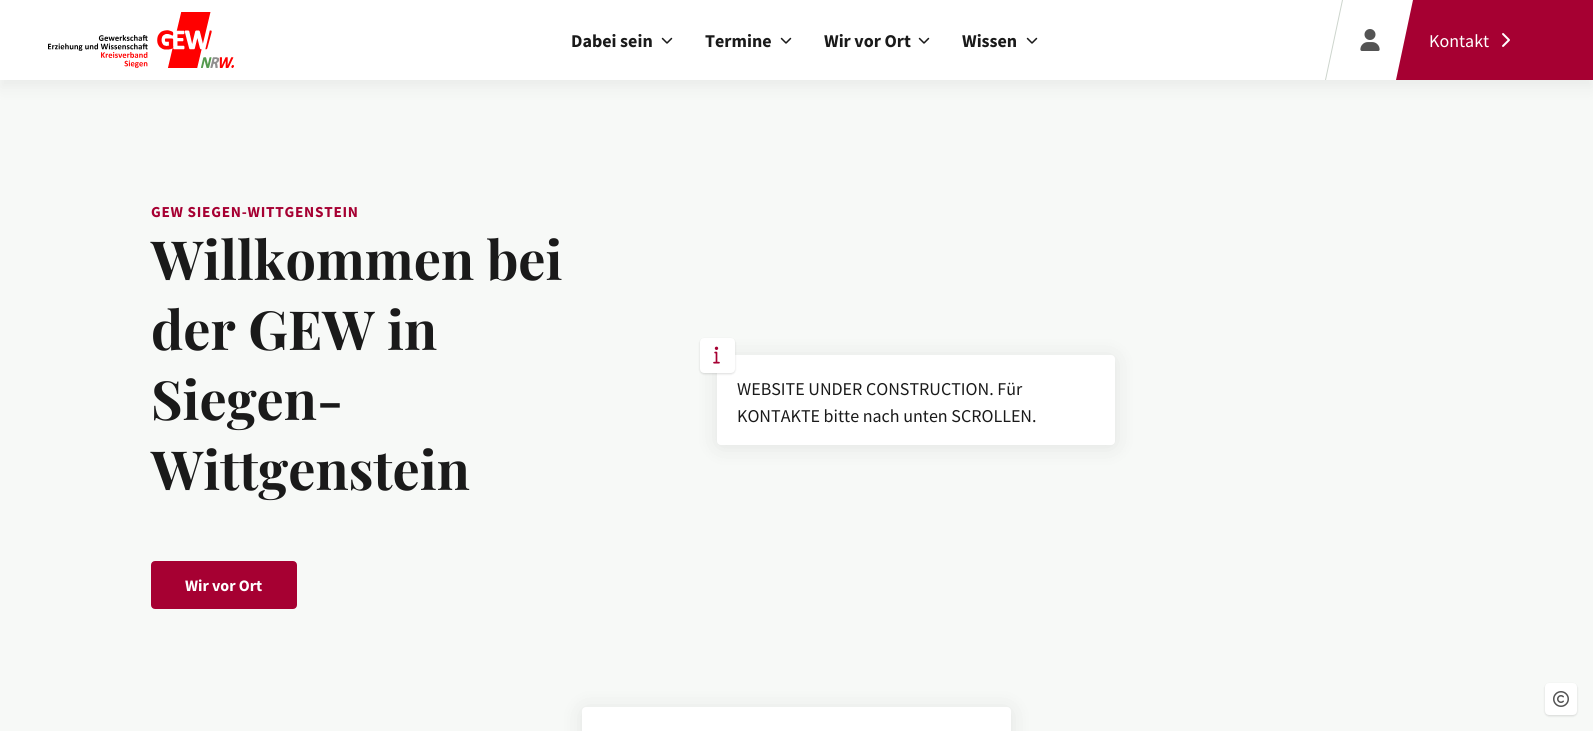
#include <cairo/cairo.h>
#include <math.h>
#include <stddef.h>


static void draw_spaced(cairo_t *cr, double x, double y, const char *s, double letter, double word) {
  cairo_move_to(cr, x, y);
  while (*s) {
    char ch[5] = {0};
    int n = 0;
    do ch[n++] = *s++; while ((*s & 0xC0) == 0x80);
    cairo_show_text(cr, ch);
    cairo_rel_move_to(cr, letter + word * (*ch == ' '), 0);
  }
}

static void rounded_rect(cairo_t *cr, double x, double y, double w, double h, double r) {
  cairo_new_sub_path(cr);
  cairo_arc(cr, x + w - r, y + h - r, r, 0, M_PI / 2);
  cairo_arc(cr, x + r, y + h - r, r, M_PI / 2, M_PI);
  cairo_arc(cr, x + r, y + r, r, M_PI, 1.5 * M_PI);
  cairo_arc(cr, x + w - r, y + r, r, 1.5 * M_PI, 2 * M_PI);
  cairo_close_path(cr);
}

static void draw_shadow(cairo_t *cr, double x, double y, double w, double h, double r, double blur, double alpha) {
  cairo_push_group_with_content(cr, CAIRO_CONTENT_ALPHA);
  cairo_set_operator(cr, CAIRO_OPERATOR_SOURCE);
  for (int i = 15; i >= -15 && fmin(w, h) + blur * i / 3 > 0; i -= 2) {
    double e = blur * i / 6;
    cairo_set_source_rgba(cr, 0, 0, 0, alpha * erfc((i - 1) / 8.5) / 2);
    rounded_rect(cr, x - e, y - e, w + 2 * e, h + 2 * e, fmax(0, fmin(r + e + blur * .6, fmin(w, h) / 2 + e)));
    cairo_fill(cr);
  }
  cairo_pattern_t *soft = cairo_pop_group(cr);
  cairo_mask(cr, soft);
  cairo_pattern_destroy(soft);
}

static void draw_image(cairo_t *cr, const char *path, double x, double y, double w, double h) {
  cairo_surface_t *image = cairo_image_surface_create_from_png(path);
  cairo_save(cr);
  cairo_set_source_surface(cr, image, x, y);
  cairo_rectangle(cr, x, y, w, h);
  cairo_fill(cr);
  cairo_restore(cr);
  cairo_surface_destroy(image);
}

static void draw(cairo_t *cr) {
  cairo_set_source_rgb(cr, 247 / 255.0, 249 / 255.0, 247 / 255.0);
  cairo_paint(cr);
  cairo_set_source_rgb(cr, 26 / 255.0, 26 / 255.0, 26 / 255.0);
  draw_shadow(cr, 0, 8, 1593, 80, 0, 8, 0.06);
  cairo_set_source_rgb(cr, 1, 1, 1);
  cairo_rectangle(cr, 0, 0, 1413, 80);
  cairo_fill(cr);
  draw_image(cr, "images/1.png", 48, 12, 186, 56);
  draw_image(cr, "images/2.png", 661, 37, 12, 7);
  draw_image(cr, "images/2.png", 780, 37, 12, 7);
  draw_image(cr, "images/2.png", 918, 37, 12, 7);
  draw_image(cr, "images/2.png", 1026, 37, 12, 7);
  cairo_set_source_rgb(cr, 204 / 255.0, 212 / 255.0, 204 / 255.0);
  cairo_new_path(cr);
  cairo_move_to(cr, 1342, 0);
  cairo_line_to(cr, 1343, 0);
  cairo_line_to(cr, 1326, 80);
  cairo_line_to(cr, 1325, 80);
  cairo_close_path(cr);
  cairo_fill(cr);
  draw_image(cr, "images/3.png", 1360, 29, 20, 22);
  cairo_set_source_rgb(cr, 166 / 255.0, 0, 50 / 255.0);
  cairo_new_path(cr);
  cairo_move_to(cr, 1413, 0);
  cairo_line_to(cr, 1554, 0);
  cairo_line_to(cr, 1536, 80);
  cairo_line_to(cr, 1396, 80);
  cairo_close_path(cr);
  cairo_fill(cr);
  draw_image(cr, "images/4.png", 1502, 33, 8, 14);
  cairo_rectangle(cr, 1536, 0, 57, 80);
  cairo_fill(cr);
  rounded_rect(cr, 152, 562, 144, 46, 3);
  cairo_fill_preserve(cr);
  cairo_stroke(cr);
  cairo_set_source_rgb(cr, 26 / 255.0, 26 / 255.0, 26 / 255.0);
  draw_shadow(cr, 1545, 684, 32, 32, 4, 1, 0.15);
  cairo_set_source_rgb(cr, 1, 1, 1);
  rounded_rect(cr, 1546, 684, 30, 30, 3);
  cairo_fill_preserve(cr);
  cairo_stroke(cr);
  draw_image(cr, "images/5.png", 1553, 691, 16, 16);
  cairo_set_source_rgb(cr, 26 / 255.0, 26 / 255.0, 26 / 255.0);
  draw_shadow(cr, 717, 357, 398, 90, 4, 10, 0.1);
  cairo_set_source_rgb(cr, 1, 1, 1);
  rounded_rect(cr, 717, 355, 398, 90, 4);
  cairo_fill(cr);
  cairo_set_source_rgb(cr, 26 / 255.0, 26 / 255.0, 26 / 255.0);
  draw_shadow(cr, 700, 339, 35, 35, 4, 1, 0.15);
  cairo_set_source_rgb(cr, 1, 1, 1);
  rounded_rect(cr, 701, 339, 33, 33, 3);
  cairo_fill_preserve(cr);
  cairo_stroke(cr);
  draw_image(cr, "images/6.png", 713, 346, 7, 18);
  cairo_set_source_rgb(cr, 26 / 255.0, 26 / 255.0, 26 / 255.0);
  draw_shadow(cr, 582, 709, 429, 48, 4, 10, 0.1);
  cairo_set_source_rgb(cr, 1, 1, 1);
  rounded_rect(cr, 582, 707, 429, 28, 4);
  cairo_fill(cr);
  cairo_select_font_face(cr, "Source Sans Pro", CAIRO_FONT_SLANT_NORMAL, CAIRO_FONT_WEIGHT_BOLD);
  cairo_set_font_size(cr, 18);
  cairo_set_source_rgb(cr, 26 / 255.0, 26 / 255.0, 26 / 255.0);
  cairo_move_to(cr, 571, 47);
  cairo_show_text(cr, "Dabei sein");
  cairo_move_to(cr, 705, 47);
  cairo_show_text(cr, "Termine");
  cairo_move_to(cr, 824, 47);
  cairo_show_text(cr, "Wir vor Ort");
  cairo_move_to(cr, 962, 47);
  cairo_show_text(cr, "Wissen");
  cairo_select_font_face(cr, "Source Sans Pro", CAIRO_FONT_SLANT_NORMAL, CAIRO_FONT_WEIGHT_NORMAL);
  cairo_set_source_rgb(cr, 1, 1, 1);
  cairo_move_to(cr, 1429, 47);
  cairo_show_text(cr, "Kontakt");
  cairo_select_font_face(cr, "Source Sans Pro", CAIRO_FONT_SLANT_NORMAL, CAIRO_FONT_WEIGHT_BOLD);
  cairo_set_font_size(cr, 15.25);
  cairo_set_source_rgb(cr, 166 / 255.0, 0, 50 / 255.0);
  draw_spaced(cr, 151, 217, "GEW SIEGEN-WITTGENSTEIN", 0.75, 0);
  cairo_select_font_face(cr, "Playfair Display", CAIRO_FONT_SLANT_NORMAL, CAIRO_FONT_WEIGHT_BOLD);
  cairo_set_font_size(cr, 54);
  cairo_set_source_rgb(cr, 26 / 255.0, 26 / 255.0, 26 / 255.0);
  cairo_move_to(cr, 151, 280);
  cairo_show_text(cr, "Willkommen bei");
  cairo_move_to(cr, 151, 350);
  cairo_show_text(cr, "der GEW in");
  cairo_move_to(cr, 151, 420);
  cairo_show_text(cr, "Siegen-");
  cairo_move_to(cr, 151, 490);
  cairo_show_text(cr, "Wittgenstein");
  cairo_select_font_face(cr, "Source Sans Pro", CAIRO_FONT_SLANT_NORMAL, CAIRO_FONT_WEIGHT_BOLD);
  cairo_set_font_size(cr, 16);
  cairo_set_source_rgb(cr, 1, 1, 1);
  cairo_move_to(cr, 185, 591);
  cairo_show_text(cr, "Wir vor Ort");
  cairo_select_font_face(cr, "Source Sans Pro", CAIRO_FONT_SLANT_NORMAL, CAIRO_FONT_WEIGHT_NORMAL);
  cairo_set_font_size(cr, 18);
  cairo_set_source_rgb(cr, 26 / 255.0, 26 / 255.0, 26 / 255.0);
  cairo_move_to(cr, 737, 395);
  cairo_show_text(cr, "WEBSITE UNDER CONSTRUCTION. Für");
  cairo_move_to(cr, 737, 422);
  cairo_show_text(cr, "KONTAKTE bitte nach unten SCROLLEN.");
}

int main(void) {
  cairo_surface_t *surface = cairo_image_surface_create(CAIRO_FORMAT_RGB24, 1593, 731);
  cairo_t *cr = cairo_create(surface);
  cairo_font_options_t *options = cairo_font_options_create();
  cairo_font_options_set_hint_metrics(options, CAIRO_HINT_METRICS_OFF);
  cairo_font_options_set_hint_style(options, CAIRO_HINT_STYLE_NONE);
  cairo_set_font_options(cr, options);
  cairo_set_miter_limit(cr, 4);
  draw(cr);
  cairo_surface_write_to_png(surface, "out.png");
  cairo_font_options_destroy(options);
  cairo_destroy(cr);
  cairo_surface_destroy(surface);
  return 0;
}
